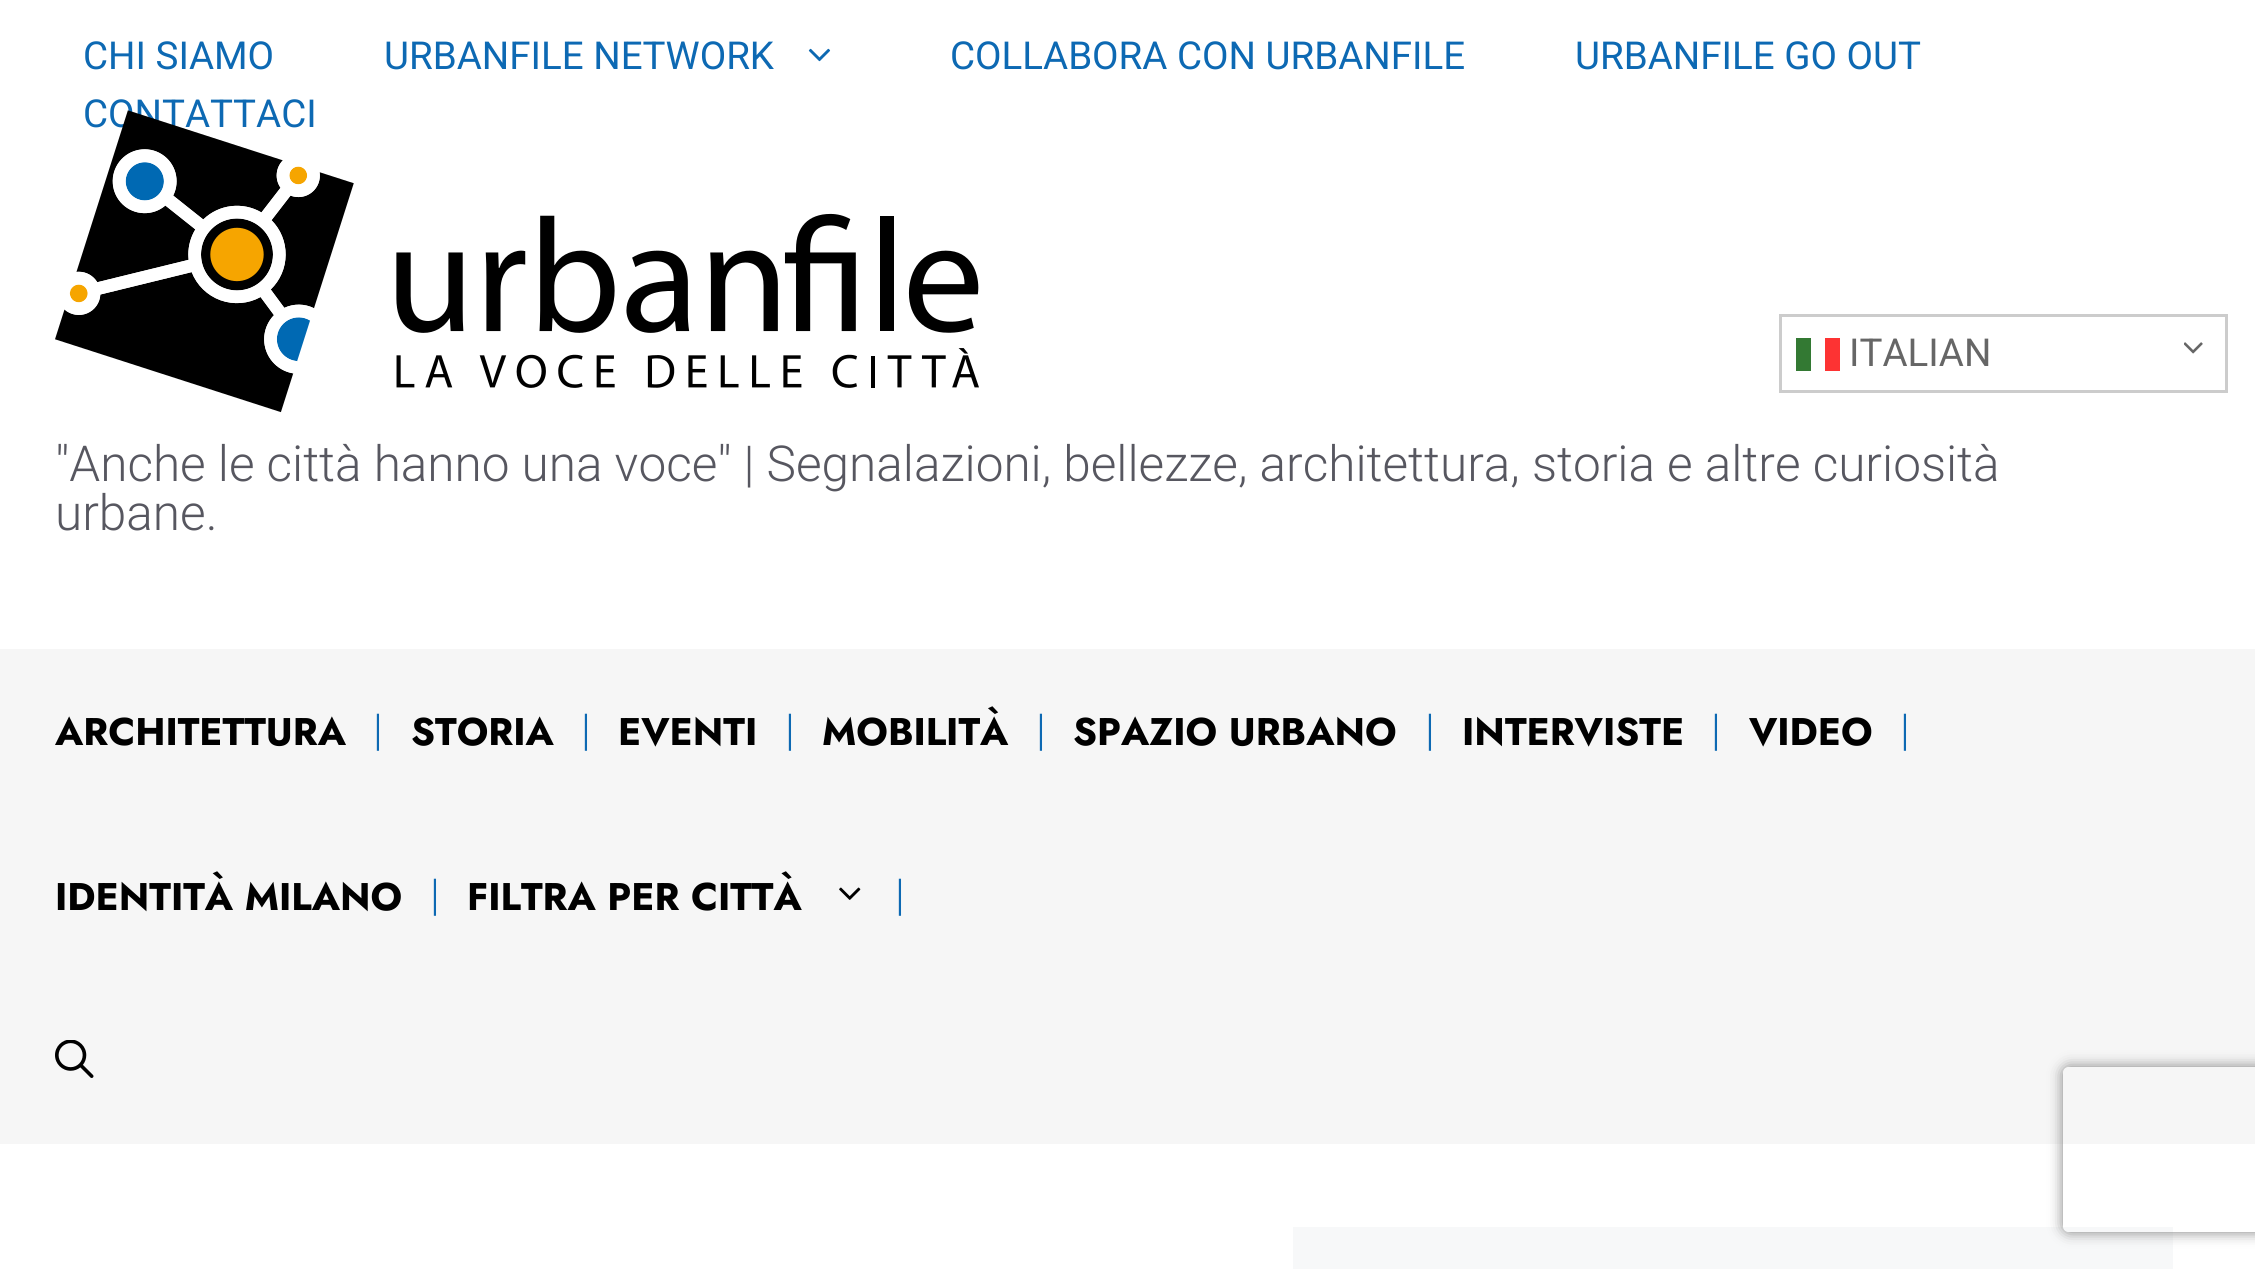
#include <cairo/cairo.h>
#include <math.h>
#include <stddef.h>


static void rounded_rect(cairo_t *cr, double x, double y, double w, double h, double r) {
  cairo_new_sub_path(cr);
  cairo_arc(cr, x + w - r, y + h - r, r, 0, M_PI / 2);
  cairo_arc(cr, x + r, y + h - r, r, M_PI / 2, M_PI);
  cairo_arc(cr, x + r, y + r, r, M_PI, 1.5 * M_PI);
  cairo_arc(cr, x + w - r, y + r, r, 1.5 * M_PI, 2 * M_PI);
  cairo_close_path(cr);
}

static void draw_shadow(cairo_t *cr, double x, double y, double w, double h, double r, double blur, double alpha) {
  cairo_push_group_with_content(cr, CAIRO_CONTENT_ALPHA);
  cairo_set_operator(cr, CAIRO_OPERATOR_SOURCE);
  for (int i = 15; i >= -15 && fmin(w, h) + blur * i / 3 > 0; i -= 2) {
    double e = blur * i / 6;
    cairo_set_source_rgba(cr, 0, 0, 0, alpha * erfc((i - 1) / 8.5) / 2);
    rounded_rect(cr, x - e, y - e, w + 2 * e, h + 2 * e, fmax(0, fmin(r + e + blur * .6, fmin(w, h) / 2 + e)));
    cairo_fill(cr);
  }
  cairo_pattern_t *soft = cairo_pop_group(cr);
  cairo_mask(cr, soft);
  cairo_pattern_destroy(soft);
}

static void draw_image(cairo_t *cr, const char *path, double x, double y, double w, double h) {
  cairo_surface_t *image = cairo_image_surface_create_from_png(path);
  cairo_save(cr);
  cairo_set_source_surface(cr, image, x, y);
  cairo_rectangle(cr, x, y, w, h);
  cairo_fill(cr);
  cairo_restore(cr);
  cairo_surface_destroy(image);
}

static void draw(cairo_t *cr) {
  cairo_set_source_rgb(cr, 1, 1, 1);
  cairo_paint(cr);
  draw_image(cr, "images/1.png", 808, 48, 23, 14);
  cairo_rectangle(cr, 1780.5, 315.5, 446, 76);
  cairo_set_source_rgb(cr, 204 / 255.0, 204 / 255.0, 204 / 255.0);
  cairo_set_line_width(cr, 3);
  cairo_stroke(cr);
  cairo_set_source_rgb(cr, 51 / 255.0, 121 / 255.0, 51 / 255.0);
  cairo_rectangle(cr, 1796, 338, 15, 33);
  cairo_fill(cr);
  cairo_set_source_rgb(cr, 253 / 255.0, 51 / 255.0, 51 / 255.0);
  cairo_rectangle(cr, 1825, 338, 15, 33);
  cairo_fill(cr);
  draw_image(cr, "images/2.png", 2184, 342, 19, 12);
  cairo_set_source_rgb(cr, 246 / 255.0, 246 / 255.0, 246 / 255.0);
  cairo_rectangle(cr, 0, 649, 2255, 495);
  cairo_fill(cr);
  draw_image(cr, "images/4.png", 839, 887, 22, 13);
  draw_image(cr, "images/5.png", 55, 1040, 39, 38);
  cairo_set_source_rgb(cr, 247 / 255.0, 248 / 255.0, 249 / 255.0);
  cairo_rectangle(cr, 1293, 1227, 880, 42);
  cairo_fill(cr);
  cairo_save(cr);
  cairo_set_fill_rule(cr, CAIRO_FILL_RULE_EVEN_ODD);
  cairo_new_path(cr);
  cairo_move_to(cr, 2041, 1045);
  cairo_line_to(cr, 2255, 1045);
  cairo_line_to(cr, 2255, 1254);
  cairo_line_to(cr, 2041, 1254);
  cairo_close_path(cr);
  cairo_move_to(cr, 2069, 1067);
  cairo_line_to(cr, 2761, 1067);
  cairo_curve_to(cr, 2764.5, 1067, 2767, 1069.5, 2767, 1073);
  cairo_line_to(cr, 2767, 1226);
  cairo_curve_to(cr, 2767, 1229.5, 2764.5, 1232, 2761, 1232);
  cairo_line_to(cr, 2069, 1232);
  cairo_curve_to(cr, 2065.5, 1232, 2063, 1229.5, 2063, 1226);
  cairo_line_to(cr, 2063, 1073);
  cairo_curve_to(cr, 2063, 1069.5, 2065.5, 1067, 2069, 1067);
  cairo_close_path(cr);
  cairo_clip(cr);
  cairo_set_source_rgb(cr, 128 / 255.0, 128 / 255.0, 128 / 255.0);
  draw_shadow(cr, 2063, 1067, 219, 165, 6, 7, 1);
  cairo_restore(cr);
  cairo_select_font_face(cr, "Roboto", CAIRO_FONT_SLANT_NORMAL, CAIRO_FONT_WEIGHT_NORMAL);
  cairo_set_font_size(cr, 38.5);
  cairo_set_source_rgb(cr, 13 / 255.0, 105 / 255.0, 179 / 255.0);
  cairo_move_to(cr, 83, 69);
  cairo_show_text(cr, "CHI SIAMO");
  cairo_move_to(cr, 384, 69);
  cairo_show_text(cr, "URBANFILE NETWORK");
  cairo_move_to(cr, 950, 69);
  cairo_show_text(cr, "COLLABORA CON URBANFILE");
  cairo_move_to(cr, 1575, 69);
  cairo_show_text(cr, "URBANFILE GO OUT");
  cairo_move_to(cr, 83, 127);
  cairo_show_text(cr, "CONTATTACI");
  cairo_set_source_rgb(cr, 102 / 255.0, 102 / 255.0, 102 / 255.0);
  cairo_move_to(cr, 1849, 366);
  cairo_show_text(cr, "ITALIAN");
  draw_image(cr, "images/3.png", 55, 110, 924, 303);
  cairo_select_font_face(cr, "Roboto Light", CAIRO_FONT_SLANT_NORMAL, CAIRO_FONT_WEIGHT_NORMAL);
  cairo_set_font_size(cr, 49.5);
  cairo_set_source_rgb(cr, 87 / 255.0, 87 / 255.0, 96 / 255.0);
  cairo_move_to(cr, 55, 481);
  cairo_show_text(cr, "\"Anche le città hanno una voce\" | Segnalazioni, bellezze, architettura, storia e altre curiosità");
  cairo_move_to(cr, 55, 530);
  cairo_show_text(cr, "urbane.");
  cairo_select_font_face(cr, "Jost", CAIRO_FONT_SLANT_NORMAL, CAIRO_FONT_WEIGHT_BOLD);
  cairo_set_font_size(cr, 38.5);
  cairo_set_source_rgb(cr, 0, 0, 0);
  cairo_move_to(cr, 55, 745);
  cairo_show_text(cr, "ARCHITETTURA");
  cairo_select_font_face(cr, "Roboto Light", CAIRO_FONT_SLANT_NORMAL, CAIRO_FONT_WEIGHT_NORMAL);
  cairo_set_font_size(cr, 44);
  cairo_set_source_rgb(cr, 13 / 255.0, 105 / 255.0, 179 / 255.0);
  cairo_move_to(cr, 373, 745);
  cairo_show_text(cr, "|");
  cairo_select_font_face(cr, "Jost", CAIRO_FONT_SLANT_NORMAL, CAIRO_FONT_WEIGHT_BOLD);
  cairo_set_font_size(cr, 38.5);
  cairo_set_source_rgb(cr, 0, 0, 0);
  cairo_move_to(cr, 411, 745);
  cairo_show_text(cr, "STORIA");
  cairo_select_font_face(cr, "Roboto Light", CAIRO_FONT_SLANT_NORMAL, CAIRO_FONT_WEIGHT_NORMAL);
  cairo_set_font_size(cr, 44);
  cairo_set_source_rgb(cr, 13 / 255.0, 105 / 255.0, 179 / 255.0);
  cairo_move_to(cr, 581, 745);
  cairo_show_text(cr, "|");
  cairo_select_font_face(cr, "Jost", CAIRO_FONT_SLANT_NORMAL, CAIRO_FONT_WEIGHT_BOLD);
  cairo_set_font_size(cr, 38.5);
  cairo_set_source_rgb(cr, 0, 0, 0);
  cairo_move_to(cr, 618, 745);
  cairo_show_text(cr, "EVENTI");
  cairo_select_font_face(cr, "Roboto Light", CAIRO_FONT_SLANT_NORMAL, CAIRO_FONT_WEIGHT_NORMAL);
  cairo_set_font_size(cr, 44);
  cairo_set_source_rgb(cr, 13 / 255.0, 105 / 255.0, 179 / 255.0);
  cairo_move_to(cr, 785, 745);
  cairo_show_text(cr, "|");
  cairo_select_font_face(cr, "Jost", CAIRO_FONT_SLANT_NORMAL, CAIRO_FONT_WEIGHT_BOLD);
  cairo_set_font_size(cr, 38.5);
  cairo_set_source_rgb(cr, 0, 0, 0);
  cairo_move_to(cr, 822, 745);
  cairo_show_text(cr, "MOBILITÀ");
  cairo_select_font_face(cr, "Roboto Light", CAIRO_FONT_SLANT_NORMAL, CAIRO_FONT_WEIGHT_NORMAL);
  cairo_set_font_size(cr, 44);
  cairo_set_source_rgb(cr, 13 / 255.0, 105 / 255.0, 179 / 255.0);
  cairo_move_to(cr, 1036, 745);
  cairo_show_text(cr, "|");
  cairo_select_font_face(cr, "Jost", CAIRO_FONT_SLANT_NORMAL, CAIRO_FONT_WEIGHT_BOLD);
  cairo_set_font_size(cr, 38.5);
  cairo_set_source_rgb(cr, 0, 0, 0);
  cairo_move_to(cr, 1073, 745);
  cairo_show_text(cr, "SPAZIO URBANO");
  cairo_select_font_face(cr, "Roboto Light", CAIRO_FONT_SLANT_NORMAL, CAIRO_FONT_WEIGHT_NORMAL);
  cairo_set_font_size(cr, 44);
  cairo_set_source_rgb(cr, 13 / 255.0, 105 / 255.0, 179 / 255.0);
  cairo_move_to(cr, 1425, 745);
  cairo_show_text(cr, "|");
  cairo_select_font_face(cr, "Jost", CAIRO_FONT_SLANT_NORMAL, CAIRO_FONT_WEIGHT_BOLD);
  cairo_set_font_size(cr, 38.5);
  cairo_set_source_rgb(cr, 0, 0, 0);
  cairo_move_to(cr, 1462, 745);
  cairo_show_text(cr, "INTERVISTE");
  cairo_select_font_face(cr, "Roboto Light", CAIRO_FONT_SLANT_NORMAL, CAIRO_FONT_WEIGHT_NORMAL);
  cairo_set_font_size(cr, 44);
  cairo_set_source_rgb(cr, 13 / 255.0, 105 / 255.0, 179 / 255.0);
  cairo_move_to(cr, 1711, 745);
  cairo_show_text(cr, "|");
  cairo_select_font_face(cr, "Jost", CAIRO_FONT_SLANT_NORMAL, CAIRO_FONT_WEIGHT_BOLD);
  cairo_set_font_size(cr, 38.5);
  cairo_set_source_rgb(cr, 0, 0, 0);
  cairo_move_to(cr, 1749, 745);
  cairo_show_text(cr, "VIDEO");
  cairo_select_font_face(cr, "Roboto Light", CAIRO_FONT_SLANT_NORMAL, CAIRO_FONT_WEIGHT_NORMAL);
  cairo_set_font_size(cr, 44);
  cairo_set_source_rgb(cr, 13 / 255.0, 105 / 255.0, 179 / 255.0);
  cairo_move_to(cr, 1900, 745);
  cairo_show_text(cr, "|");
  cairo_select_font_face(cr, "Jost", CAIRO_FONT_SLANT_NORMAL, CAIRO_FONT_WEIGHT_BOLD);
  cairo_set_font_size(cr, 38.5);
  cairo_set_source_rgb(cr, 0, 0, 0);
  cairo_move_to(cr, 55, 910);
  cairo_show_text(cr, "IDENTITÀ MILANO");
  cairo_select_font_face(cr, "Roboto Light", CAIRO_FONT_SLANT_NORMAL, CAIRO_FONT_WEIGHT_NORMAL);
  cairo_set_font_size(cr, 44);
  cairo_set_source_rgb(cr, 13 / 255.0, 105 / 255.0, 179 / 255.0);
  cairo_move_to(cr, 430, 910);
  cairo_show_text(cr, "|");
  cairo_select_font_face(cr, "Jost", CAIRO_FONT_SLANT_NORMAL, CAIRO_FONT_WEIGHT_BOLD);
  cairo_set_font_size(cr, 38.5);
  cairo_set_source_rgb(cr, 0, 0, 0);
  cairo_move_to(cr, 467, 910);
  cairo_show_text(cr, "FILTRA PER CITTÀ");
  cairo_select_font_face(cr, "Roboto Light", CAIRO_FONT_SLANT_NORMAL, CAIRO_FONT_WEIGHT_NORMAL);
  cairo_set_font_size(cr, 44);
  cairo_set_source_rgb(cr, 13 / 255.0, 105 / 255.0, 179 / 255.0);
  cairo_move_to(cr, 895, 910);
  cairo_show_text(cr, "|");
}

int main(void) {
  cairo_surface_t *surface = cairo_image_surface_create(CAIRO_FORMAT_RGB24, 2255, 1269);
  cairo_t *cr = cairo_create(surface);
  cairo_font_options_t *options = cairo_font_options_create();
  cairo_font_options_set_hint_metrics(options, CAIRO_HINT_METRICS_OFF);
  cairo_font_options_set_hint_style(options, CAIRO_HINT_STYLE_NONE);
  cairo_set_font_options(cr, options);
  cairo_set_miter_limit(cr, 4);
  draw(cr);
  cairo_surface_write_to_png(surface, "out.png");
  cairo_font_options_destroy(options);
  cairo_destroy(cr);
  cairo_surface_destroy(surface);
  return 0;
}
